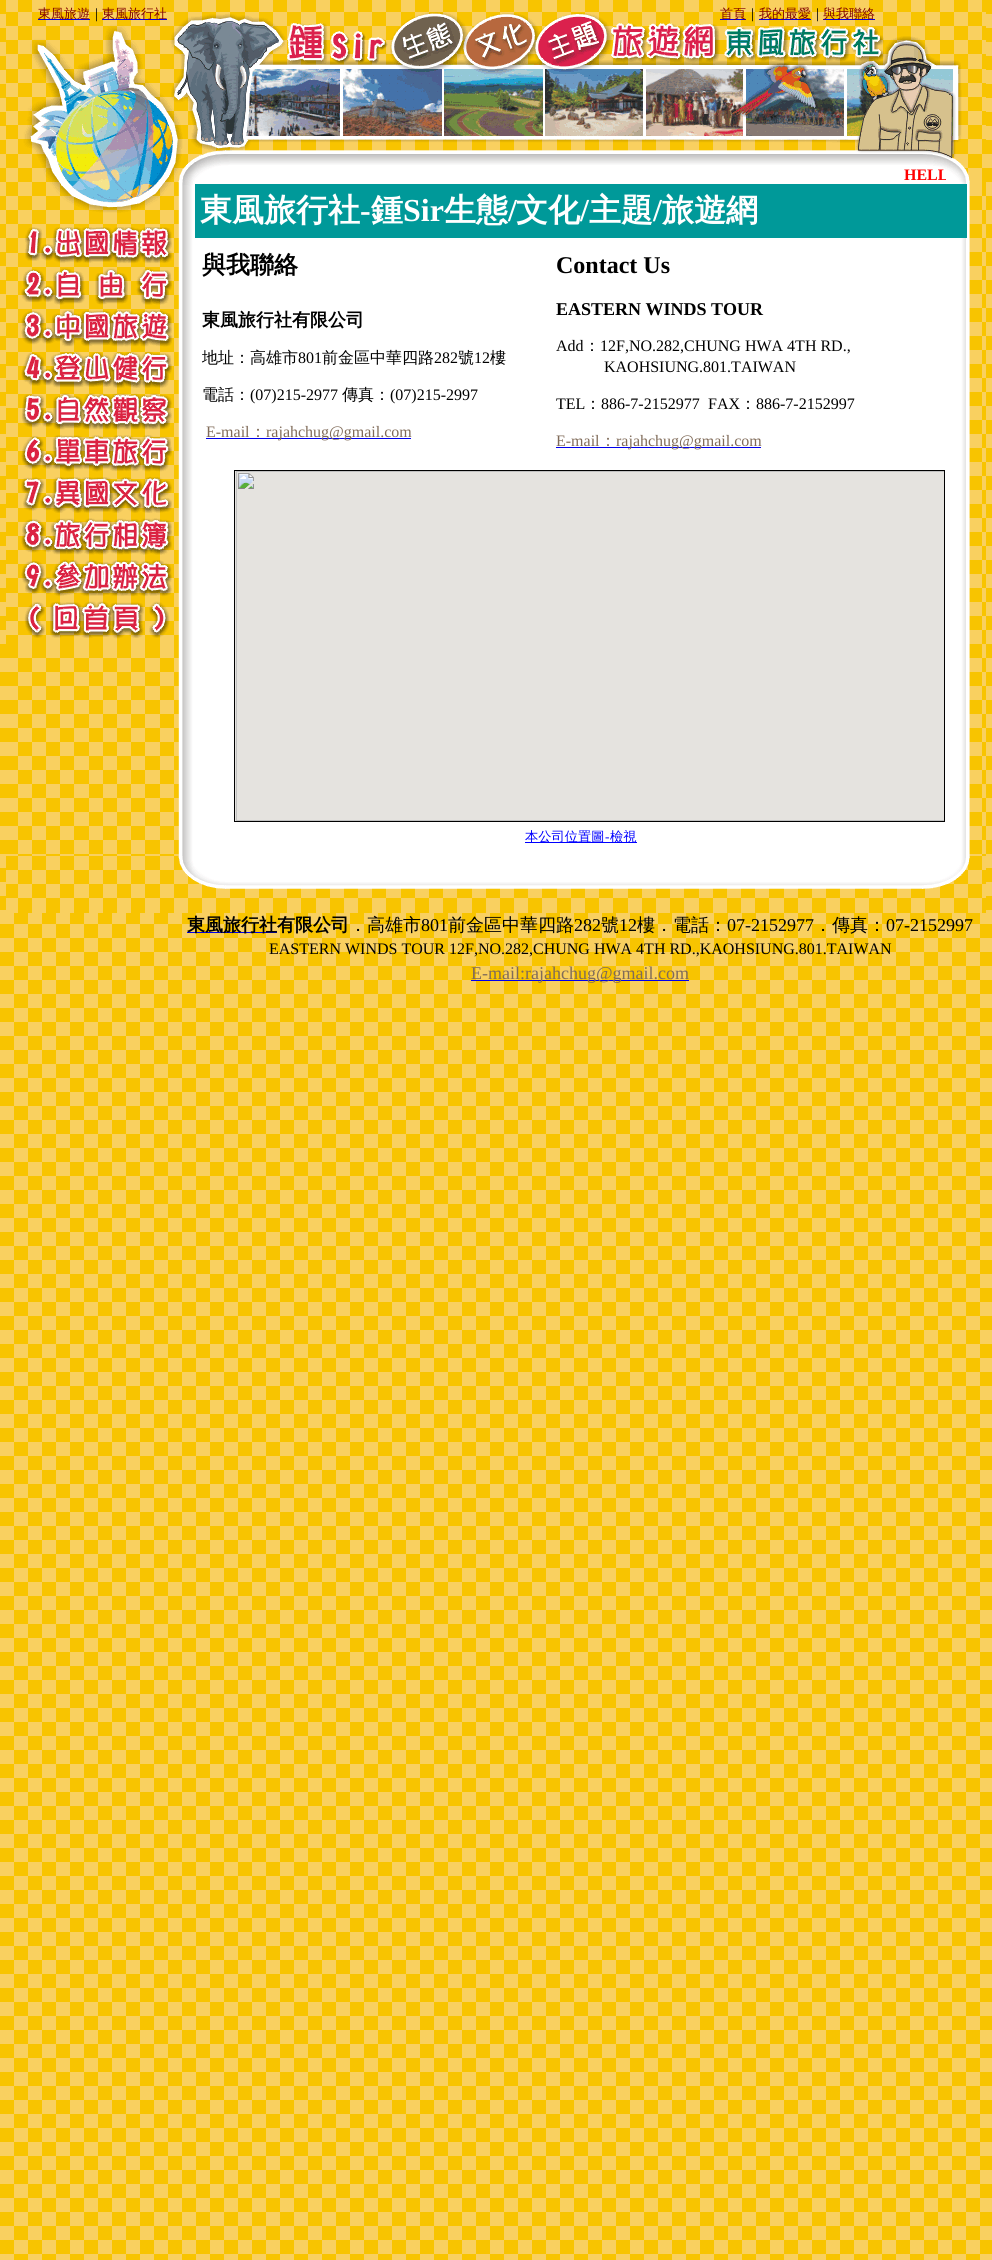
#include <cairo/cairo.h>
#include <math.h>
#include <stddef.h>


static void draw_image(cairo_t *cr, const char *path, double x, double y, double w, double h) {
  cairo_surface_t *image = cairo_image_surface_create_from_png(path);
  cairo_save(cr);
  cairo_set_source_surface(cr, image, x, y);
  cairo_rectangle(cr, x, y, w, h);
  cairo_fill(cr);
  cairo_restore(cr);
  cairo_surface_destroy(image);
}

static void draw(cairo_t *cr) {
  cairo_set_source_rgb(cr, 1, 1, 1);
  cairo_paint(cr);
  draw_image(cr, "images/1.png", 0, 0, 992, 2260);
  draw_image(cr, "images/2.png", 14, 182, 972, 674);
  draw_image(cr, "images/3.png", 6, 0, 980, 182);
  cairo_set_source_rgb(cr, 0, 0, 238 / 255.0);
  cairo_rectangle(cr, 38, 19, 52, 1);
  cairo_fill(cr);
  cairo_rectangle(cr, 102, 19, 65, 1);
  cairo_fill(cr);
  cairo_rectangle(cr, 720, 19, 26, 1);
  cairo_fill(cr);
  cairo_rectangle(cr, 759, 19, 52, 1);
  cairo_fill(cr);
  cairo_rectangle(cr, 823, 19, 52, 1);
  cairo_fill(cr);
  draw_image(cr, "images/4.png", 6, 182, 187, 40);
  draw_image(cr, "images/5.png", 6, 222, 173, 43);
  draw_image(cr, "images/6.png", 6, 265, 173, 41);
  draw_image(cr, "images/7.png", 6, 306, 173, 42);
  draw_image(cr, "images/8.png", 6, 348, 173, 42);
  draw_image(cr, "images/9.png", 6, 390, 173, 42);
  draw_image(cr, "images/10.png", 6, 432, 173, 42);
  draw_image(cr, "images/11.png", 6, 474, 173, 42);
  draw_image(cr, "images/12.png", 6, 516, 173, 41);
  draw_image(cr, "images/13.png", 6, 557, 173, 42);
  draw_image(cr, "images/14.png", 6, 599, 173, 45);
  cairo_set_source_rgb(cr, 0, 153 / 255.0, 153 / 255.0);
  cairo_rectangle(cr, 195, 184, 772, 54);
  cairo_fill(cr);
  cairo_set_source_rgb(cr, 0, 0, 238 / 255.0);
  cairo_rectangle(cr, 206, 438, 205, 1);
  cairo_fill(cr);
  cairo_rectangle(cr, 556, 447, 205, 1);
  cairo_fill(cr);
  cairo_rectangle(cr, 234.5, 470.5, 710, 351);
  cairo_set_source_rgb(cr, 0, 0, 0);
  cairo_set_line_width(cr, 1);
  cairo_stroke(cr);
  draw_image(cr, "images/15.png", 235, 471, 709, 350);
  cairo_set_source_rgb(cr, 0, 0, 1);
  cairo_rectangle(cr, 525, 842, 112, 1);
  cairo_fill(cr);
  draw_image(cr, "images/16.png", 6, 856, 980, 57);
  cairo_set_source_rgb(cr, 0, 0, 238 / 255.0);
  cairo_rectangle(cr, 187, 932, 90, 1);
  cairo_fill(cr);
  cairo_rectangle(cr, 471, 980, 218, 1);
  cairo_fill(cr);
  cairo_select_font_face(cr, "WenQuanYi Zen Hei Medium", CAIRO_FONT_SLANT_NORMAL, CAIRO_FONT_WEIGHT_NORMAL);
  cairo_set_font_size(cr, 13);
  cairo_set_source_rgb(cr, 128 / 255.0, 0, 0);
  cairo_move_to(cr, 38, 18);
  cairo_show_text(cr, "東風旅遊");
  cairo_set_source_rgb(cr, 0, 0, 0);
  cairo_move_to(cr, 90, 18);
  cairo_show_text(cr, "｜");
  cairo_set_source_rgb(cr, 128 / 255.0, 0, 0);
  cairo_move_to(cr, 102, 18);
  cairo_show_text(cr, "東風旅行社");
  cairo_move_to(cr, 720, 18);
  cairo_show_text(cr, "首頁");
  cairo_set_source_rgb(cr, 0, 0, 0);
  cairo_move_to(cr, 746, 18);
  cairo_show_text(cr, "｜");
  cairo_set_source_rgb(cr, 128 / 255.0, 0, 0);
  cairo_move_to(cr, 759, 18);
  cairo_show_text(cr, "我的最愛");
  cairo_set_source_rgb(cr, 0, 0, 0);
  cairo_move_to(cr, 811, 18);
  cairo_show_text(cr, "｜");
  cairo_set_source_rgb(cr, 128 / 255.0, 0, 0);
  cairo_move_to(cr, 823, 18);
  cairo_show_text(cr, "與我聯絡");
  cairo_save(cr);
  cairo_rectangle(cr, 208, 165, 738, 17);
  cairo_clip(cr);
  cairo_select_font_face(cr, "Liberation Serif", CAIRO_FONT_SLANT_NORMAL, CAIRO_FONT_WEIGHT_BOLD);
  cairo_set_font_size(cr, 16);
  cairo_set_source_rgb(cr, 1, 0, 0);
  cairo_move_to(cr, 904, 180);
  cairo_show_text(cr, "HELL");
  cairo_restore(cr);
  cairo_select_font_face(cr, "WenQuanYi Zen Hei", CAIRO_FONT_SLANT_NORMAL, CAIRO_FONT_WEIGHT_BOLD);
  cairo_set_font_size(cr, 32);
  cairo_set_source_rgb(cr, 1, 1, 1);
  cairo_move_to(cr, 200, 221);
  cairo_show_text(cr, "東風旅行社");
  cairo_select_font_face(cr, "Liberation Serif", CAIRO_FONT_SLANT_NORMAL, CAIRO_FONT_WEIGHT_BOLD);
  cairo_move_to(cr, 360, 221);
  cairo_show_text(cr, "-");
  cairo_select_font_face(cr, "WenQuanYi Zen Hei", CAIRO_FONT_SLANT_NORMAL, CAIRO_FONT_WEIGHT_BOLD);
  cairo_move_to(cr, 371, 221);
  cairo_show_text(cr, "鍾");
  cairo_select_font_face(cr, "Liberation Serif", CAIRO_FONT_SLANT_NORMAL, CAIRO_FONT_WEIGHT_BOLD);
  cairo_move_to(cr, 403, 221);
  cairo_show_text(cr, "Sir");
  cairo_select_font_face(cr, "WenQuanYi Zen Hei", CAIRO_FONT_SLANT_NORMAL, CAIRO_FONT_WEIGHT_BOLD);
  cairo_move_to(cr, 444, 221);
  cairo_show_text(cr, "生態");
  cairo_select_font_face(cr, "Liberation Serif", CAIRO_FONT_SLANT_NORMAL, CAIRO_FONT_WEIGHT_BOLD);
  cairo_move_to(cr, 508, 221);
  cairo_show_text(cr, "/");
  cairo_select_font_face(cr, "WenQuanYi Zen Hei", CAIRO_FONT_SLANT_NORMAL, CAIRO_FONT_WEIGHT_BOLD);
  cairo_move_to(cr, 516, 221);
  cairo_show_text(cr, "文化");
  cairo_select_font_face(cr, "Liberation Serif", CAIRO_FONT_SLANT_NORMAL, CAIRO_FONT_WEIGHT_BOLD);
  cairo_move_to(cr, 580, 221);
  cairo_show_text(cr, "/");
  cairo_select_font_face(cr, "WenQuanYi Zen Hei", CAIRO_FONT_SLANT_NORMAL, CAIRO_FONT_WEIGHT_BOLD);
  cairo_move_to(cr, 589, 221);
  cairo_show_text(cr, "主題");
  cairo_select_font_face(cr, "Liberation Serif", CAIRO_FONT_SLANT_NORMAL, CAIRO_FONT_WEIGHT_BOLD);
  cairo_move_to(cr, 653, 221);
  cairo_show_text(cr, "/");
  cairo_select_font_face(cr, "WenQuanYi Zen Hei", CAIRO_FONT_SLANT_NORMAL, CAIRO_FONT_WEIGHT_BOLD);
  cairo_move_to(cr, 662, 221);
  cairo_show_text(cr, "旅遊網");
  cairo_set_font_size(cr, 24);
  cairo_set_source_rgb(cr, 0, 0, 0);
  cairo_move_to(cr, 202, 273);
  cairo_show_text(cr, "與我聯絡");
  cairo_select_font_face(cr, "Liberation Serif", CAIRO_FONT_SLANT_NORMAL, CAIRO_FONT_WEIGHT_BOLD);
  cairo_move_to(cr, 556, 273);
  cairo_show_text(cr, "Contact Us");
  cairo_select_font_face(cr, "WenQuanYi Zen Hei", CAIRO_FONT_SLANT_NORMAL, CAIRO_FONT_WEIGHT_BOLD);
  cairo_set_font_size(cr, 18);
  cairo_move_to(cr, 202, 326);
  cairo_show_text(cr, "東風旅行社有限公司");
  cairo_select_font_face(cr, "WenQuanYi Zen Hei Medium", CAIRO_FONT_SLANT_NORMAL, CAIRO_FONT_WEIGHT_NORMAL);
  cairo_set_font_size(cr, 16);
  cairo_move_to(cr, 202, 363);
  cairo_show_text(cr, "地址：高雄市");
  cairo_select_font_face(cr, "Liberation Serif", CAIRO_FONT_SLANT_NORMAL, CAIRO_FONT_WEIGHT_NORMAL);
  cairo_move_to(cr, 298, 363);
  cairo_show_text(cr, "801");
  cairo_select_font_face(cr, "WenQuanYi Zen Hei Medium", CAIRO_FONT_SLANT_NORMAL, CAIRO_FONT_WEIGHT_NORMAL);
  cairo_move_to(cr, 322, 363);
  cairo_show_text(cr, "前金區中華四路");
  cairo_select_font_face(cr, "Liberation Serif", CAIRO_FONT_SLANT_NORMAL, CAIRO_FONT_WEIGHT_NORMAL);
  cairo_move_to(cr, 434, 363);
  cairo_show_text(cr, "282");
  cairo_select_font_face(cr, "WenQuanYi Zen Hei Medium", CAIRO_FONT_SLANT_NORMAL, CAIRO_FONT_WEIGHT_NORMAL);
  cairo_move_to(cr, 458, 363);
  cairo_show_text(cr, "號");
  cairo_select_font_face(cr, "Liberation Serif", CAIRO_FONT_SLANT_NORMAL, CAIRO_FONT_WEIGHT_NORMAL);
  cairo_move_to(cr, 474, 363);
  cairo_show_text(cr, "12");
  cairo_select_font_face(cr, "WenQuanYi Zen Hei Medium", CAIRO_FONT_SLANT_NORMAL, CAIRO_FONT_WEIGHT_NORMAL);
  cairo_move_to(cr, 490, 363);
  cairo_show_text(cr, "樓");
  cairo_move_to(cr, 202, 400);
  cairo_show_text(cr, "電話：");
  cairo_select_font_face(cr, "Liberation Serif", CAIRO_FONT_SLANT_NORMAL, CAIRO_FONT_WEIGHT_NORMAL);
  cairo_move_to(cr, 250, 400);
  cairo_show_text(cr, "(07)215-2977");
  cairo_select_font_face(cr, "WenQuanYi Zen Hei Medium", CAIRO_FONT_SLANT_NORMAL, CAIRO_FONT_WEIGHT_NORMAL);
  cairo_move_to(cr, 342, 400);
  cairo_show_text(cr, "傳真：");
  cairo_select_font_face(cr, "Liberation Serif", CAIRO_FONT_SLANT_NORMAL, CAIRO_FONT_WEIGHT_NORMAL);
  cairo_move_to(cr, 390, 400);
  cairo_show_text(cr, "(07)215-2997");
  cairo_set_source_rgb(cr, 128 / 255.0, 107 / 255.0, 89 / 255.0);
  cairo_move_to(cr, 206, 437);
  cairo_show_text(cr, "E-mail");
  cairo_select_font_face(cr, "WenQuanYi Zen Hei Medium", CAIRO_FONT_SLANT_NORMAL, CAIRO_FONT_WEIGHT_NORMAL);
  cairo_move_to(cr, 250, 437);
  cairo_show_text(cr, "：");
  cairo_select_font_face(cr, "Liberation Serif", CAIRO_FONT_SLANT_NORMAL, CAIRO_FONT_WEIGHT_NORMAL);
  cairo_move_to(cr, 266, 437);
  cairo_show_text(cr, "rajahchug@gmail.com");
  cairo_select_font_face(cr, "Liberation Serif", CAIRO_FONT_SLANT_NORMAL, CAIRO_FONT_WEIGHT_BOLD);
  cairo_set_font_size(cr, 18);
  cairo_set_source_rgb(cr, 0, 0, 0);
  cairo_move_to(cr, 556, 315);
  cairo_show_text(cr, "EASTERN WINDS TOUR");
  cairo_select_font_face(cr, "Liberation Serif", CAIRO_FONT_SLANT_NORMAL, CAIRO_FONT_WEIGHT_NORMAL);
  cairo_set_font_size(cr, 16);
  cairo_move_to(cr, 556, 351);
  cairo_show_text(cr, "Add");
  cairo_select_font_face(cr, "WenQuanYi Zen Hei Medium", CAIRO_FONT_SLANT_NORMAL, CAIRO_FONT_WEIGHT_NORMAL);
  cairo_move_to(cr, 584, 351);
  cairo_show_text(cr, "：");
  cairo_select_font_face(cr, "Liberation Serif", CAIRO_FONT_SLANT_NORMAL, CAIRO_FONT_WEIGHT_NORMAL);
  cairo_move_to(cr, 600, 351);
  cairo_show_text(cr, "12F,NO.282,CHUNG HWA 4TH RD.,");
  cairo_move_to(cr, 604, 372);
  cairo_show_text(cr, "KAOHSIUNG.801.TAIWAN");
  cairo_move_to(cr, 556, 409);
  cairo_show_text(cr, "TEL");
  cairo_select_font_face(cr, "WenQuanYi Zen Hei Medium", CAIRO_FONT_SLANT_NORMAL, CAIRO_FONT_WEIGHT_NORMAL);
  cairo_move_to(cr, 585, 409);
  cairo_show_text(cr, "：");
  cairo_select_font_face(cr, "Liberation Serif", CAIRO_FONT_SLANT_NORMAL, CAIRO_FONT_WEIGHT_NORMAL);
  cairo_move_to(cr, 601, 409);
  cairo_show_text(cr, "886-7-2152977");
  cairo_move_to(cr, 708, 409);
  cairo_show_text(cr, "FAX");
  cairo_select_font_face(cr, "WenQuanYi Zen Hei Medium", CAIRO_FONT_SLANT_NORMAL, CAIRO_FONT_WEIGHT_NORMAL);
  cairo_move_to(cr, 740, 409);
  cairo_show_text(cr, "：");
  cairo_select_font_face(cr, "Liberation Serif", CAIRO_FONT_SLANT_NORMAL, CAIRO_FONT_WEIGHT_NORMAL);
  cairo_move_to(cr, 756, 409);
  cairo_show_text(cr, "886-7-2152997");
  cairo_set_source_rgb(cr, 128 / 255.0, 107 / 255.0, 89 / 255.0);
  cairo_move_to(cr, 556, 446);
  cairo_show_text(cr, "E-mail");
  cairo_select_font_face(cr, "WenQuanYi Zen Hei Medium", CAIRO_FONT_SLANT_NORMAL, CAIRO_FONT_WEIGHT_NORMAL);
  cairo_move_to(cr, 600, 446);
  cairo_show_text(cr, "：");
  cairo_select_font_face(cr, "Liberation Serif", CAIRO_FONT_SLANT_NORMAL, CAIRO_FONT_WEIGHT_NORMAL);
  cairo_move_to(cr, 616, 446);
  cairo_show_text(cr, "rajahchug@gmail.com");
  cairo_select_font_face(cr, "WenQuanYi Zen Hei Medium", CAIRO_FONT_SLANT_NORMAL, CAIRO_FONT_WEIGHT_NORMAL);
  cairo_set_font_size(cr, 13.25);
  cairo_set_source_rgb(cr, 0, 0, 1);
  cairo_move_to(cr, 525, 841);
  cairo_show_text(cr, "本公司位置圖");
  cairo_select_font_face(cr, "Liberation Serif", CAIRO_FONT_SLANT_NORMAL, CAIRO_FONT_WEIGHT_NORMAL);
  cairo_move_to(cr, 605, 841);
  cairo_show_text(cr, "-");
  cairo_select_font_face(cr, "WenQuanYi Zen Hei Medium", CAIRO_FONT_SLANT_NORMAL, CAIRO_FONT_WEIGHT_NORMAL);
  cairo_move_to(cr, 610, 841);
  cairo_show_text(cr, "檢視");
  cairo_select_font_face(cr, "WenQuanYi Zen Hei", CAIRO_FONT_SLANT_NORMAL, CAIRO_FONT_WEIGHT_BOLD);
  cairo_set_font_size(cr, 18);
  cairo_set_source_rgb(cr, 0, 0, 0);
  cairo_move_to(cr, 187, 931);
  cairo_show_text(cr, "東風旅行社有限公司");
  cairo_select_font_face(cr, "WenQuanYi Zen Hei Medium", CAIRO_FONT_SLANT_NORMAL, CAIRO_FONT_WEIGHT_NORMAL);
  cairo_move_to(cr, 349, 931);
  cairo_show_text(cr, "．高雄市");
  cairo_select_font_face(cr, "Liberation Serif", CAIRO_FONT_SLANT_NORMAL, CAIRO_FONT_WEIGHT_NORMAL);
  cairo_move_to(cr, 421, 931);
  cairo_show_text(cr, "801");
  cairo_select_font_face(cr, "WenQuanYi Zen Hei Medium", CAIRO_FONT_SLANT_NORMAL, CAIRO_FONT_WEIGHT_NORMAL);
  cairo_move_to(cr, 448, 931);
  cairo_show_text(cr, "前金區中華四路");
  cairo_select_font_face(cr, "Liberation Serif", CAIRO_FONT_SLANT_NORMAL, CAIRO_FONT_WEIGHT_NORMAL);
  cairo_move_to(cr, 574, 931);
  cairo_show_text(cr, "282");
  cairo_select_font_face(cr, "WenQuanYi Zen Hei Medium", CAIRO_FONT_SLANT_NORMAL, CAIRO_FONT_WEIGHT_NORMAL);
  cairo_move_to(cr, 601, 931);
  cairo_show_text(cr, "號");
  cairo_select_font_face(cr, "Liberation Serif", CAIRO_FONT_SLANT_NORMAL, CAIRO_FONT_WEIGHT_NORMAL);
  cairo_move_to(cr, 619, 931);
  cairo_show_text(cr, "12");
  cairo_select_font_face(cr, "WenQuanYi Zen Hei Medium", CAIRO_FONT_SLANT_NORMAL, CAIRO_FONT_WEIGHT_NORMAL);
  cairo_move_to(cr, 637, 931);
  cairo_show_text(cr, "樓．電話：");
  cairo_select_font_face(cr, "Liberation Serif", CAIRO_FONT_SLANT_NORMAL, CAIRO_FONT_WEIGHT_NORMAL);
  cairo_move_to(cr, 727, 931);
  cairo_show_text(cr, "07-2152977");
  cairo_select_font_face(cr, "WenQuanYi Zen Hei Medium", CAIRO_FONT_SLANT_NORMAL, CAIRO_FONT_WEIGHT_NORMAL);
  cairo_move_to(cr, 814, 931);
  cairo_show_text(cr, "．傳真：");
  cairo_select_font_face(cr, "Liberation Serif", CAIRO_FONT_SLANT_NORMAL, CAIRO_FONT_WEIGHT_NORMAL);
  cairo_move_to(cr, 886, 931);
  cairo_show_text(cr, "07-2152997");
  cairo_set_font_size(cr, 16);
  cairo_move_to(cr, 269, 954);
  cairo_show_text(cr, "EASTERN WINDS TOUR 12F,NO.282,CHUNG HWA 4TH RD.,KAOHSIUNG.801.TAIWAN");
  cairo_set_font_size(cr, 18);
  cairo_set_source_rgb(cr, 128 / 255.0, 107 / 255.0, 89 / 255.0);
  cairo_move_to(cr, 471, 979);
  cairo_show_text(cr, "E-mail:rajahchug@gmail.com");
}

int main(void) {
  cairo_surface_t *surface = cairo_image_surface_create(CAIRO_FORMAT_RGB24, 992, 2260);
  cairo_t *cr = cairo_create(surface);
  cairo_font_options_t *options = cairo_font_options_create();
  cairo_font_options_set_hint_metrics(options, CAIRO_HINT_METRICS_OFF);
  cairo_font_options_set_hint_style(options, CAIRO_HINT_STYLE_NONE);
  cairo_set_font_options(cr, options);
  cairo_set_miter_limit(cr, 4);
  draw(cr);
  cairo_surface_write_to_png(surface, "out.png");
  cairo_font_options_destroy(options);
  cairo_destroy(cr);
  cairo_surface_destroy(surface);
  return 0;
}
